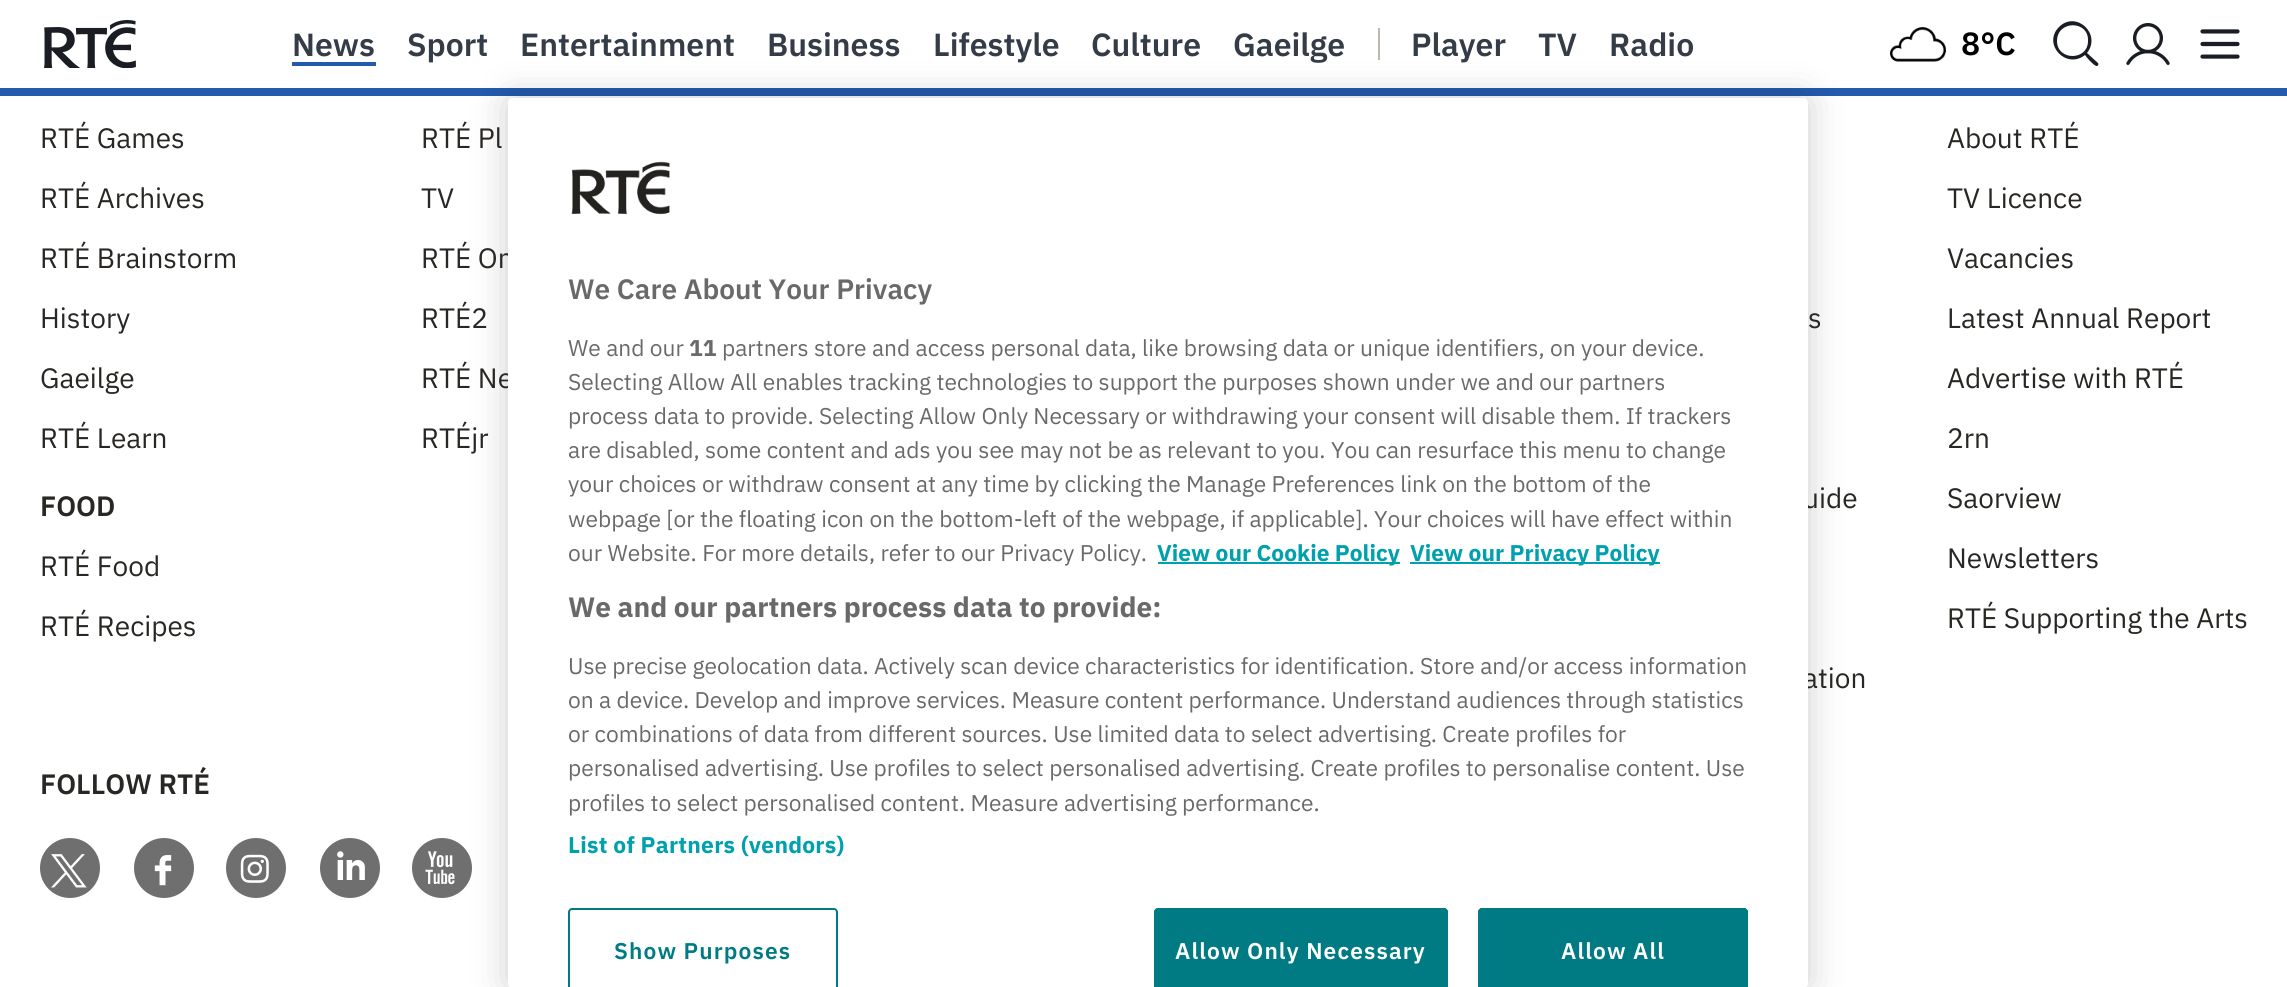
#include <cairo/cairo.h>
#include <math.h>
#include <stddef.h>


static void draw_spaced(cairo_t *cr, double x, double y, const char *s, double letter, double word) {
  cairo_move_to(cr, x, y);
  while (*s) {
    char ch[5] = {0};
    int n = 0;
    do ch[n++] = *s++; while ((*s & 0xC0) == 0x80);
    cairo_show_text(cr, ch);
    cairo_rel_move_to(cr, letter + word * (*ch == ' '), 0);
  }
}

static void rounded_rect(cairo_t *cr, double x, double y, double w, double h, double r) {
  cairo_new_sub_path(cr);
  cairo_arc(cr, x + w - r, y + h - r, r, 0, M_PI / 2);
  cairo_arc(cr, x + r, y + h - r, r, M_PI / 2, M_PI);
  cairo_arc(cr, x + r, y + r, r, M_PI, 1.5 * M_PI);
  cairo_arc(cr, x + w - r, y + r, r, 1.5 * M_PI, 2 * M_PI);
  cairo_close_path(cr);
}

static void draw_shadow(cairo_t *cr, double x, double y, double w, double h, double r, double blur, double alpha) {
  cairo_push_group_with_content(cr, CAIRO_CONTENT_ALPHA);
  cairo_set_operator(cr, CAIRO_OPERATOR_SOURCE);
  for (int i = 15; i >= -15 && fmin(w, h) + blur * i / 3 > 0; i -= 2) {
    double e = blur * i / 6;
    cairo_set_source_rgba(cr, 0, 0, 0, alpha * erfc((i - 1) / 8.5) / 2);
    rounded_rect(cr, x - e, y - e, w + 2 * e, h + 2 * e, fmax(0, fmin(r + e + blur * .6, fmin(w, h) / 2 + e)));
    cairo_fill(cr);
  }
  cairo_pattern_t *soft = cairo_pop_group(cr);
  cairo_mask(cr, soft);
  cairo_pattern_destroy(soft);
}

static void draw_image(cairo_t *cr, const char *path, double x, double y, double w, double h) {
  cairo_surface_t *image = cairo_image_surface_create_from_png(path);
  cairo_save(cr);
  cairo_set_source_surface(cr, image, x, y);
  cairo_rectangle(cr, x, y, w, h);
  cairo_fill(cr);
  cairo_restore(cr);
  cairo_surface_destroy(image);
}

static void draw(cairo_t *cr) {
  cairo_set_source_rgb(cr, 1, 1, 1);
  cairo_paint(cr);
  cairo_set_source_rgb(cr, 35 / 255.0, 91 / 255.0, 174 / 255.0);
  cairo_rectangle(cr, 0, 88, 2287, 8);
  cairo_fill(cr);
  draw_image(cr, "images/1.png", 44, 20, 92, 48);
  cairo_rectangle(cr, 292, 62, 84, 4);
  cairo_fill(cr);
  cairo_set_source_rgb(cr, 188 / 255.0, 184 / 255.0, 176 / 255.0);
  cairo_rectangle(cr, 1378, 28, 2, 32);
  cairo_fill(cr);
  draw_image(cr, "images/2.png", 1890, 26, 56, 36);
  cairo_set_source_rgb(cr, 26 / 255.0, 30 / 255.0, 36 / 255.0);
  cairo_new_path(cr);
  cairo_move_to(cr, 2098, 63);
  cairo_line_to(cr, 2087, 53);
  cairo_curve_to(cr, 2102, 34, 2076, 10, 2059, 27);
  cairo_curve_to(cr, 2042, 44, 2066, 70, 2085, 55);
  cairo_curve_to(cr, 2086, 57, 2095, 67, 2097, 66);
  cairo_curve_to(cr, 2098, 66, 2099, 64, 2098, 63);
  cairo_close_path(cr);
  cairo_move_to(cr, 2057, 41);
  cairo_curve_to(cr, 2057, 20, 2089, 20, 2088, 41);
  cairo_curve_to(cr, 2088, 61, 2057, 61, 2057, 41);
  cairo_close_path(cr);
  cairo_fill(cr);
  draw_image(cr, "images/3.png", 2126, 23, 44, 42);
  draw_image(cr, "images/4.png", 2200, 29, 40, 30);
  cairo_set_source_rgb(cr, 111 / 255.0, 111 / 255.0, 111 / 255.0);
  cairo_arc(cr, 70, 868, 30, 0, 2 * M_PI);
  cairo_fill(cr);
  draw_image(cr, "images/5.png", 51, 854, 36, 34);
  cairo_arc(cr, 164, 868, 30, 0, 2 * M_PI);
  cairo_fill(cr);
  draw_image(cr, "images/6.png", 154, 855, 18, 31);
  cairo_arc(cr, 256, 868, 30, 0, 2 * M_PI);
  cairo_fill(cr);
  draw_image(cr, "images/7.png", 240, 854, 29, 29);
  cairo_arc(cr, 350, 868, 30, 0, 2 * M_PI);
  cairo_fill(cr);
  draw_image(cr, "images/8.png", 337, 851, 28, 29);
  cairo_arc(cr, 442, 868, 30, 0, 2 * M_PI);
  cairo_fill(cr);
  draw_image(cr, "images/9.png", 425, 851, 30, 34);
  cairo_set_source_rgb(cr, 0, 0, 0);
  draw_shadow(cr, 508, 98, 1300, 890, 5, 18, 0.2);
  cairo_select_font_face(cr, "IBM Plex Sans SemiBold", CAIRO_FONT_SLANT_NORMAL, CAIRO_FONT_WEIGHT_NORMAL);
  cairo_set_font_size(cr, 32);
  cairo_set_source_rgb(cr, 51 / 255.0, 60 / 255.0, 71 / 255.0);
  cairo_move_to(cr, 292, 56);
  cairo_show_text(cr, "News");
  cairo_move_to(cr, 407, 56);
  cairo_show_text(cr, "Sport");
  cairo_move_to(cr, 520, 56);
  cairo_show_text(cr, "Entertainment");
  cairo_move_to(cr, 767, 56);
  cairo_show_text(cr, "Business");
  cairo_move_to(cr, 933, 56);
  cairo_show_text(cr, "Lifestyle");
  cairo_move_to(cr, 1091, 56);
  cairo_show_text(cr, "Culture");
  cairo_move_to(cr, 1233, 56);
  cairo_show_text(cr, "Gaeilge");
  cairo_move_to(cr, 1411, 56);
  cairo_show_text(cr, "Player");
  cairo_move_to(cr, 1538, 56);
  cairo_show_text(cr, "TV");
  cairo_move_to(cr, 1609, 56);
  cairo_show_text(cr, "Radio");
  cairo_set_source_rgb(cr, 0, 0, 0);
  cairo_move_to(cr, 1961, 55);
  cairo_show_text(cr, "8°C");
  cairo_select_font_face(cr, "IBM Plex Sans", CAIRO_FONT_SLANT_NORMAL, CAIRO_FONT_WEIGHT_NORMAL);
  cairo_set_font_size(cr, 28);
  cairo_set_source_rgb(cr, 41 / 255.0, 39 / 255.0, 36 / 255.0);
  cairo_move_to(cr, 40, 148);
  cairo_show_text(cr, "RTÉ Games");
  cairo_move_to(cr, 40, 208);
  cairo_show_text(cr, "RTÉ Archives");
  cairo_move_to(cr, 40, 268);
  cairo_show_text(cr, "RTÉ Brainstorm");
  cairo_move_to(cr, 40, 328);
  cairo_show_text(cr, "History");
  cairo_move_to(cr, 40, 388);
  cairo_show_text(cr, "Gaeilge");
  cairo_move_to(cr, 40, 448);
  cairo_show_text(cr, "RTÉ Learn");
  cairo_select_font_face(cr, "IBM Plex Sans SemiBold", CAIRO_FONT_SLANT_NORMAL, CAIRO_FONT_WEIGHT_NORMAL);
  cairo_move_to(cr, 40, 516);
  cairo_show_text(cr, "FOOD");
  cairo_select_font_face(cr, "IBM Plex Sans", CAIRO_FONT_SLANT_NORMAL, CAIRO_FONT_WEIGHT_NORMAL);
  cairo_move_to(cr, 40, 576);
  cairo_show_text(cr, "RTÉ Food");
  cairo_move_to(cr, 40, 636);
  cairo_show_text(cr, "RTÉ Recipes");
  cairo_move_to(cr, 421, 148);
  cairo_show_text(cr, "RTÉ Pl");
  cairo_move_to(cr, 421, 208);
  cairo_show_text(cr, "TV");
  cairo_move_to(cr, 421, 268);
  cairo_show_text(cr, "RTÉ On");
  cairo_move_to(cr, 421, 328);
  cairo_show_text(cr, "RTÉ2");
  cairo_move_to(cr, 421, 388);
  cairo_show_text(cr, "RTÉ Ne");
  cairo_move_to(cr, 421, 448);
  cairo_show_text(cr, "RTÉjr");
  cairo_move_to(cr, 1808, 328);
  cairo_show_text(cr, "s");
  cairo_move_to(cr, 1803, 508);
  cairo_show_text(cr, "uide");
  cairo_move_to(cr, 1803, 688);
  cairo_show_text(cr, "ation");
  cairo_move_to(cr, 1947, 148);
  cairo_show_text(cr, "About RTÉ");
  cairo_move_to(cr, 1947, 208);
  cairo_show_text(cr, "TV Licence");
  cairo_move_to(cr, 1947, 268);
  cairo_show_text(cr, "Vacancies");
  cairo_move_to(cr, 1947, 328);
  cairo_show_text(cr, "Latest Annual Report");
  cairo_move_to(cr, 1947, 388);
  cairo_show_text(cr, "Advertise with RTÉ");
  cairo_move_to(cr, 1947, 448);
  cairo_show_text(cr, "2rn");
  cairo_move_to(cr, 1947, 508);
  cairo_show_text(cr, "Saorview");
  cairo_move_to(cr, 1947, 568);
  cairo_show_text(cr, "Newsletters");
  cairo_move_to(cr, 1947, 628);
  cairo_show_text(cr, "RTÉ Supporting the Arts");
  cairo_select_font_face(cr, "IBM Plex Sans SemiBold", CAIRO_FONT_SLANT_NORMAL, CAIRO_FONT_WEIGHT_NORMAL);
  cairo_move_to(cr, 40, 794);
  cairo_show_text(cr, "FOLLOW RTÉ");
  cairo_set_source_rgb(cr, 1, 1, 1);
  rounded_rect(cr, 508, 98, 1300, 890, 5);
  cairo_fill(cr);
  draw_image(cr, "images/10.png", 571, 161, 99, 54);
  cairo_set_source_rgb(cr, 105 / 255.0, 105 / 255.0, 105 / 255.0);
  cairo_move_to(cr, 568, 299);
  cairo_show_text(cr, "We Care About Your Privacy");
  cairo_select_font_face(cr, "IBM Plex Sans", CAIRO_FONT_SLANT_NORMAL, CAIRO_FONT_WEIGHT_NORMAL);
  cairo_set_font_size(cr, 22.75);
  cairo_move_to(cr, 568, 356);
  cairo_show_text(cr, "We and our");
  cairo_select_font_face(cr, "IBM Plex Sans", CAIRO_FONT_SLANT_NORMAL, CAIRO_FONT_WEIGHT_BOLD);
  cairo_move_to(cr, 689, 356);
  cairo_show_text(cr, "11");
  cairo_select_font_face(cr, "IBM Plex Sans", CAIRO_FONT_SLANT_NORMAL, CAIRO_FONT_WEIGHT_NORMAL);
  cairo_move_to(cr, 722, 356);
  cairo_show_text(cr, "partners store and access personal data, like browsing data or unique identifiers, on your device.");
  cairo_move_to(cr, 568, 390);
  cairo_show_text(cr, "Selecting Allow All enables tracking technologies to support the purposes shown under we and our partners");
  cairo_move_to(cr, 568, 424);
  cairo_show_text(cr, "process data to provide. Selecting Allow Only Necessary or withdrawing your consent will disable them. If trackers");
  cairo_move_to(cr, 568, 458);
  cairo_show_text(cr, "are disabled, some content and ads you see may not be as relevant to you. You can resurface this menu to change");
  cairo_move_to(cr, 568, 492);
  cairo_show_text(cr, "your choices or withdraw consent at any time by clicking the Manage Preferences link on the bottom of the");
  cairo_move_to(cr, 568, 527);
  cairo_show_text(cr, "webpage [or the floating icon on the bottom-left of the webpage, if applicable]. Your choices will have effect within");
  cairo_move_to(cr, 568, 561);
  cairo_show_text(cr, "our Website. For more details, refer to our Privacy Policy.");
  cairo_set_source_rgb(cr, 0, 161 / 255.0, 173 / 255.0);
  cairo_rectangle(cr, 1158, 562, 242, 2);
  cairo_fill(cr);
  cairo_select_font_face(cr, "IBM Plex Sans", CAIRO_FONT_SLANT_NORMAL, CAIRO_FONT_WEIGHT_BOLD);
  cairo_move_to(cr, 1157, 561);
  cairo_show_text(cr, "View our Cookie Policy");
  cairo_rectangle(cr, 1410, 562, 250, 2);
  cairo_fill(cr);
  cairo_move_to(cr, 1410, 561);
  cairo_show_text(cr, "View our Privacy Policy");
  cairo_set_font_size(cr, 28);
  cairo_set_source_rgb(cr, 105 / 255.0, 105 / 255.0, 105 / 255.0);
  cairo_move_to(cr, 568, 617);
  cairo_show_text(cr, "We and our partners process data to provide:");
  cairo_select_font_face(cr, "IBM Plex Sans", CAIRO_FONT_SLANT_NORMAL, CAIRO_FONT_WEIGHT_NORMAL);
  cairo_set_font_size(cr, 22.75);
  cairo_move_to(cr, 568, 674);
  cairo_show_text(cr, "Use precise geolocation data. Actively scan device characteristics for identification. Store and/or access information");
  cairo_move_to(cr, 568, 708);
  cairo_show_text(cr, "on a device. Develop and improve services. Measure content performance. Understand audiences through statistics");
  cairo_move_to(cr, 568, 742);
  cairo_show_text(cr, "or combinations of data from different sources. Use limited data to select advertising. Create profiles for");
  cairo_move_to(cr, 568, 776);
  cairo_show_text(cr, "personalised advertising. Use profiles to select personalised advertising. Create profiles to personalise content. Use");
  cairo_move_to(cr, 568, 811);
  cairo_show_text(cr, "profiles to select personalised content. Measure advertising performance.");
  cairo_select_font_face(cr, "IBM Plex Sans", CAIRO_FONT_SLANT_NORMAL, CAIRO_FONT_WEIGHT_BOLD);
  cairo_set_source_rgb(cr, 0, 161 / 255.0, 173 / 255.0);
  draw_spaced(cr, 568, 853, "List of Partners (vendors)", 0.25, 0);
  cairo_set_source_rgb(cr, 0, 123 / 255.0, 132 / 255.0);
  cairo_new_path(cr);
  cairo_move_to(cr, 572, 908);
  cairo_curve_to(cr, 570, 908, 568, 910, 568, 912);
  cairo_line_to(cr, 568, 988);
  cairo_line_to(cr, 570, 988);
  cairo_line_to(cr, 570, 912);
  cairo_curve_to(cr, 570, 911, 571, 910, 572, 910);
  cairo_line_to(cr, 834, 910);
  cairo_curve_to(cr, 835, 910, 836, 911, 836, 912);
  cairo_line_to(cr, 836, 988);
  cairo_line_to(cr, 838, 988);
  cairo_line_to(cr, 838, 912);
  cairo_curve_to(cr, 838, 910, 836, 908, 834, 908);
  cairo_close_path(cr);
  cairo_fill(cr);
  cairo_select_font_face(cr, "IBM Plex Sans SemiBold", CAIRO_FONT_SLANT_NORMAL, CAIRO_FONT_WEIGHT_NORMAL);
  draw_spaced(cr, 614, 959, "Show Purposes", 1.1, 0);
  cairo_new_path(cr);
  cairo_move_to(cr, 1158, 908);
  cairo_line_to(cr, 1444, 908);
  cairo_curve_to(cr, 1446, 908, 1448, 910, 1448, 912);
  cairo_line_to(cr, 1448, 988);
  cairo_line_to(cr, 1154, 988);
  cairo_line_to(cr, 1154, 912);
  cairo_curve_to(cr, 1154, 910, 1156, 908, 1158, 908);
  cairo_close_path(cr);
  cairo_fill(cr);
  cairo_new_path(cr);
  cairo_move_to(cr, 1158, 908);
  cairo_curve_to(cr, 1156, 908, 1154, 910, 1154, 912);
  cairo_line_to(cr, 1154, 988);
  cairo_line_to(cr, 1156, 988);
  cairo_line_to(cr, 1156, 912);
  cairo_curve_to(cr, 1156, 911, 1157, 910, 1158, 910);
  cairo_line_to(cr, 1444, 910);
  cairo_curve_to(cr, 1445, 910, 1446, 911, 1446, 912);
  cairo_line_to(cr, 1446, 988);
  cairo_line_to(cr, 1448, 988);
  cairo_line_to(cr, 1448, 912);
  cairo_curve_to(cr, 1448, 910, 1446, 908, 1444, 908);
  cairo_close_path(cr);
  cairo_fill(cr);
  cairo_set_source_rgb(cr, 1, 1, 1);
  draw_spaced(cr, 1175, 959, "Allow Only Necessary", 1.1, 0);
  cairo_set_source_rgb(cr, 0, 123 / 255.0, 132 / 255.0);
  cairo_new_path(cr);
  cairo_move_to(cr, 1482, 908);
  cairo_line_to(cr, 1744, 908);
  cairo_curve_to(cr, 1746, 908, 1748, 910, 1748, 912);
  cairo_line_to(cr, 1748, 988);
  cairo_line_to(cr, 1478, 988);
  cairo_line_to(cr, 1478, 912);
  cairo_curve_to(cr, 1478, 910, 1480, 908, 1482, 908);
  cairo_close_path(cr);
  cairo_fill(cr);
  cairo_new_path(cr);
  cairo_move_to(cr, 1482, 908);
  cairo_curve_to(cr, 1480, 908, 1478, 910, 1478, 912);
  cairo_line_to(cr, 1478, 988);
  cairo_line_to(cr, 1480, 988);
  cairo_line_to(cr, 1480, 912);
  cairo_curve_to(cr, 1480, 911, 1481, 910, 1482, 910);
  cairo_line_to(cr, 1744, 910);
  cairo_curve_to(cr, 1745, 910, 1746, 911, 1746, 912);
  cairo_line_to(cr, 1746, 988);
  cairo_line_to(cr, 1748, 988);
  cairo_line_to(cr, 1748, 912);
  cairo_curve_to(cr, 1748, 910, 1746, 908, 1744, 908);
  cairo_close_path(cr);
  cairo_fill(cr);
  cairo_set_source_rgb(cr, 1, 1, 1);
  draw_spaced(cr, 1561, 959, "Allow All", 1.1, 0);
}

int main(void) {
  cairo_surface_t *surface = cairo_image_surface_create(CAIRO_FORMAT_RGB24, 2287, 987);
  cairo_t *cr = cairo_create(surface);
  cairo_font_options_t *options = cairo_font_options_create();
  cairo_font_options_set_hint_metrics(options, CAIRO_HINT_METRICS_OFF);
  cairo_font_options_set_hint_style(options, CAIRO_HINT_STYLE_NONE);
  cairo_set_font_options(cr, options);
  cairo_set_miter_limit(cr, 4);
  draw(cr);
  cairo_surface_write_to_png(surface, "out.png");
  cairo_font_options_destroy(options);
  cairo_destroy(cr);
  cairo_surface_destroy(surface);
  return 0;
}
